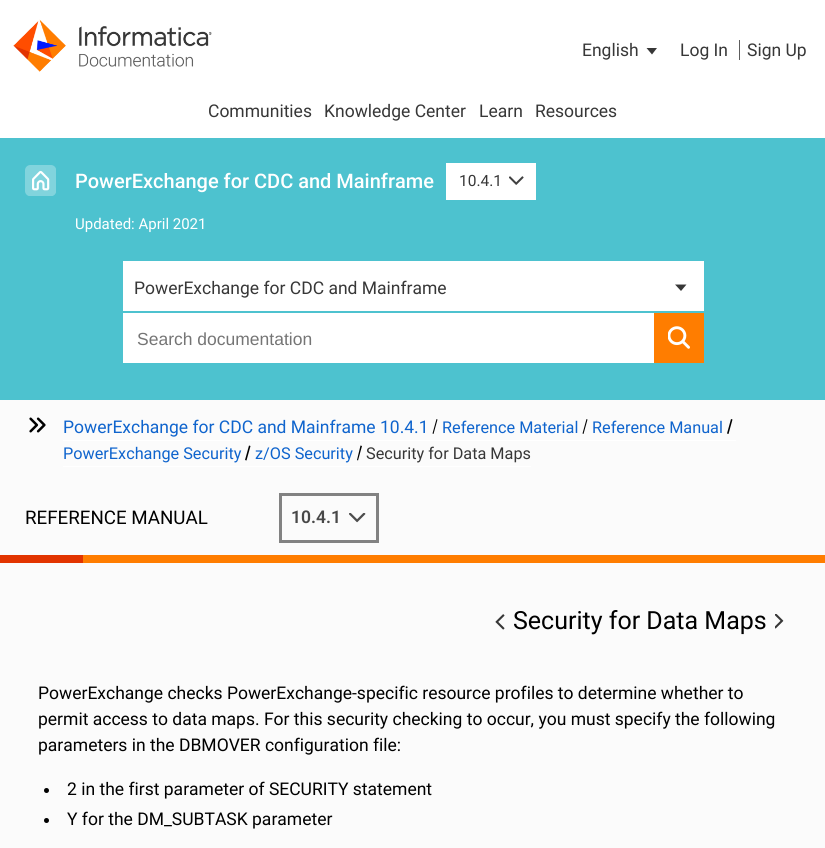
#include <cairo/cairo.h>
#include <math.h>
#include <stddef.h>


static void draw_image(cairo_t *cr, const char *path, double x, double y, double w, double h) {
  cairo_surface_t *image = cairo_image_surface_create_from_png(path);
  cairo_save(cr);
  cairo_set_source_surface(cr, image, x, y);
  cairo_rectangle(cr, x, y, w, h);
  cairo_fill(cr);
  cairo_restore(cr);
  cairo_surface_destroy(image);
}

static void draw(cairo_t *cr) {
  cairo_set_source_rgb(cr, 1, 1, 1);
  cairo_paint(cr);
  draw_image(cr, "images/1.png", 13, 19, 199, 53);
  cairo_set_source_rgb(cr, 55 / 255.0, 55 / 255.0, 55 / 255.0);
  cairo_new_path(cr);
  cairo_move_to(cr, 657, 48);
  cairo_line_to(cr, 652, 54.5);
  cairo_line_to(cr, 646.5, 48);
  cairo_close_path(cr);
  cairo_fill(cr);
  cairo_set_source_rgb(cr, 93 / 255.0, 93 / 255.0, 93 / 255.0);
  cairo_rectangle(cr, 739, 40, 1, 20);
  cairo_fill(cr);
  cairo_set_source_rgb(cr, 77 / 255.0, 194 / 255.0, 207 / 255.0);
  cairo_rectangle(cr, 0, 138, 825, 262);
  cairo_fill(cr);
  draw_image(cr, "images/2.png", 25, 165, 31, 31);
  cairo_set_source_rgb(cr, 1, 1, 1);
  cairo_rectangle(cr, 446, 163, 90, 37);
  cairo_fill(cr);
  draw_image(cr, "images/3.png", 509, 176, 15, 9);
  cairo_rectangle(cr, 123, 261, 581, 50);
  cairo_fill(cr);
  cairo_set_source_rgb(cr, 55 / 255.0, 55 / 255.0, 55 / 255.0);
  cairo_new_path(cr);
  cairo_move_to(cr, 686.5, 284.5);
  cairo_line_to(cr, 681, 291);
  cairo_line_to(cr, 675, 284.5);
  cairo_close_path(cr);
  cairo_fill(cr);
  cairo_set_source_rgb(cr, 1, 1, 1);
  cairo_rectangle(cr, 123, 313, 531, 50);
  cairo_fill(cr);
  cairo_set_source_rgb(cr, 1, 125 / 255.0, 0);
  cairo_rectangle(cr, 654, 313, 50, 50);
  cairo_fill(cr);
  draw_image(cr, "images/4.png", 668, 326, 22, 23);
  cairo_set_source_rgb(cr, 251 / 255.0, 251 / 255.0, 251 / 255.0);
  cairo_rectangle(cr, 0, 400, 825, 448);
  cairo_fill(cr);
  draw_image(cr, "images/5.png", 29, 417, 17, 16);
  cairo_set_source_rgb(cr, 1, 1, 1);
  cairo_rectangle(cr, 63, 440, 673, 1);
  cairo_fill(cr);
  cairo_set_source_rgb(cr, 0, 0, 0);
  cairo_new_path(cr);
  cairo_move_to(cr, 436.5, 419);
  cairo_line_to(cr, 437.5, 419.5);
  cairo_line_to(cr, 433.5, 434);
  cairo_line_to(cr, 432.5, 433.5);
  cairo_close_path(cr);
  cairo_fill(cr);
  cairo_new_path(cr);
  cairo_move_to(cr, 586.5, 419);
  cairo_line_to(cr, 587.5, 419.5);
  cairo_line_to(cr, 583.5, 434);
  cairo_line_to(cr, 582.5, 433.5);
  cairo_close_path(cr);
  cairo_fill(cr);
  cairo_new_path(cr);
  cairo_move_to(cr, 731, 419);
  cairo_line_to(cr, 732.5, 419.5);
  cairo_line_to(cr, 728.5, 434);
  cairo_line_to(cr, 727, 433.5);
  cairo_close_path(cr);
  cairo_fill(cr);
  cairo_set_source_rgb(cr, 1, 1, 1);
  cairo_rectangle(cr, 63, 466, 468, 1);
  cairo_fill(cr);
  cairo_set_source_rgb(cr, 0, 0, 0);
  cairo_new_path(cr);
  cairo_move_to(cr, 249, 445.5);
  cairo_line_to(cr, 250.5, 446);
  cairo_line_to(cr, 246.5, 460.5);
  cairo_line_to(cr, 245, 460);
  cairo_close_path(cr);
  cairo_fill(cr);
  cairo_new_path(cr);
  cairo_move_to(cr, 360.5, 445.5);
  cairo_line_to(cr, 362, 446);
  cairo_line_to(cr, 358, 460.5);
  cairo_line_to(cr, 357, 460);
  cairo_close_path(cr);
  cairo_fill(cr);
  cairo_rectangle(cr, 280.5, 494.5, 97, 47);
  cairo_set_source_rgb(cr, 130 / 255.0, 130 / 255.0, 130 / 255.0);
  cairo_set_line_width(cr, 3);
  cairo_stroke(cr);
  draw_image(cr, "images/6.png", 349, 513, 17, 10);
  cairo_set_source_rgb(cr, 1, 125 / 255.0, 0);
  cairo_rectangle(cr, 83, 555, 742, 8);
  cairo_fill(cr);
  cairo_set_source_rgb(cr, 226 / 255.0, 52 / 255.0, 0);
  cairo_rectangle(cr, 0, 555, 83, 8);
  cairo_fill(cr);
  draw_image(cr, "images/7.png", 495, 614, 10, 16);
  draw_image(cr, "images/8.png", 775, 614, 9, 15);
  cairo_set_source_rgb(cr, 0, 0, 0);
  cairo_arc(cr, 46.5, 790.5, 2.5, 0, 2 * M_PI);
  cairo_fill(cr);
  cairo_arc(cr, 46.5, 820.5, 2.5, 0, 2 * M_PI);
  cairo_fill(cr);
  cairo_select_font_face(cr, "Roboto", CAIRO_FONT_SLANT_NORMAL, CAIRO_FONT_WEIGHT_NORMAL);
  cairo_set_font_size(cr, 17.5);
  cairo_set_source_rgb(cr, 55 / 255.0, 55 / 255.0, 55 / 255.0);
  cairo_move_to(cr, 582, 56);
  cairo_show_text(cr, "English");
  cairo_move_to(cr, 680, 56);
  cairo_show_text(cr, "Log In");
  cairo_move_to(cr, 747, 56);
  cairo_show_text(cr, "Sign Up");
  cairo_move_to(cr, 208, 117);
  cairo_show_text(cr, "Communities");
  cairo_move_to(cr, 324, 117);
  cairo_show_text(cr, "Knowledge Center");
  cairo_move_to(cr, 479, 117);
  cairo_show_text(cr, "Learn");
  cairo_move_to(cr, 535, 117);
  cairo_show_text(cr, "Resources");
  cairo_select_font_face(cr, "Roboto Medium", CAIRO_FONT_SLANT_NORMAL, CAIRO_FONT_WEIGHT_NORMAL);
  cairo_set_font_size(cr, 20);
  cairo_set_source_rgb(cr, 1, 1, 1);
  cairo_move_to(cr, 75, 188);
  cairo_show_text(cr, "PowerExchange for CDC and Mainframe");
  cairo_select_font_face(cr, "Roboto", CAIRO_FONT_SLANT_NORMAL, CAIRO_FONT_WEIGHT_NORMAL);
  cairo_set_font_size(cr, 15.5);
  cairo_set_source_rgb(cr, 55 / 255.0, 55 / 255.0, 55 / 255.0);
  cairo_move_to(cr, 459, 186);
  cairo_show_text(cr, "10.4.1");
  cairo_set_font_size(cr, 15);
  cairo_set_source_rgb(cr, 1, 1, 1);
  cairo_move_to(cr, 75, 229);
  cairo_show_text(cr, "Updated: April 2021");
  cairo_set_font_size(cr, 17.5);
  cairo_set_source_rgb(cr, 55 / 255.0, 55 / 255.0, 55 / 255.0);
  cairo_move_to(cr, 134, 294);
  cairo_show_text(cr, "PowerExchange for CDC and Mainframe");
  cairo_select_font_face(cr, "Liberation Sans", CAIRO_FONT_SLANT_NORMAL, CAIRO_FONT_WEIGHT_NORMAL);
  cairo_set_source_rgb(cr, 117 / 255.0, 117 / 255.0, 117 / 255.0);
  cairo_move_to(cr, 137, 345);
  cairo_show_text(cr, "Search documentation");
  cairo_select_font_face(cr, "Roboto", CAIRO_FONT_SLANT_NORMAL, CAIRO_FONT_WEIGHT_NORMAL);
  cairo_set_source_rgb(cr, 15 / 255.0, 100 / 255.0, 205 / 255.0);
  cairo_move_to(cr, 63, 433);
  cairo_show_text(cr, "PowerExchange for CDC and Mainframe 10.4.1");
  cairo_set_font_size(cr, 16.25);
  cairo_move_to(cr, 442, 433);
  cairo_show_text(cr, "Reference Material");
  cairo_move_to(cr, 592, 433);
  cairo_show_text(cr, "Reference Manual");
  cairo_move_to(cr, 63, 459);
  cairo_show_text(cr, "PowerExchange Security");
  cairo_move_to(cr, 255, 459);
  cairo_show_text(cr, "z/OS Security");
  cairo_set_source_rgb(cr, 55 / 255.0, 55 / 255.0, 55 / 255.0);
  cairo_move_to(cr, 366, 459);
  cairo_show_text(cr, "Security for Data Maps");
  cairo_set_font_size(cr, 18.75);
  cairo_set_source_rgb(cr, 0, 0, 0);
  cairo_move_to(cr, 25, 524);
  cairo_show_text(cr, "REFERENCE MANUAL");
  cairo_select_font_face(cr, "Roboto SemiBold", CAIRO_FONT_SLANT_NORMAL, CAIRO_FONT_WEIGHT_NORMAL);
  cairo_set_font_size(cr, 17.5);
  cairo_set_source_rgb(cr, 72 / 255.0, 72 / 255.0, 72 / 255.0);
  cairo_move_to(cr, 291, 523);
  cairo_show_text(cr, "10.4.1");
  cairo_select_font_face(cr, "Roboto", CAIRO_FONT_SLANT_NORMAL, CAIRO_FONT_WEIGHT_NORMAL);
  cairo_set_font_size(cr, 25);
  cairo_set_source_rgb(cr, 0, 0, 0);
  cairo_move_to(cr, 513, 629);
  cairo_show_text(cr, "Security for Data Maps");
  cairo_set_font_size(cr, 17.5);
  cairo_move_to(cr, 38, 699);
  cairo_show_text(cr, "PowerExchange checks PowerExchange-specific resource profiles to determine whether to");
  cairo_move_to(cr, 38, 725);
  cairo_show_text(cr, "permit access to data maps. For this security checking to occur, you must specify the following");
  cairo_move_to(cr, 38, 751);
  cairo_show_text(cr, "parameters in the DBMOVER configuration file:");
  cairo_move_to(cr, 67, 795);
  cairo_show_text(cr, "2 in the first parameter of SECURITY statement");
  cairo_move_to(cr, 67, 825);
  cairo_show_text(cr, "Y for the DM_SUBTASK parameter");
}

int main(void) {
  cairo_surface_t *surface = cairo_image_surface_create(CAIRO_FORMAT_RGB24, 825, 848);
  cairo_t *cr = cairo_create(surface);
  cairo_font_options_t *options = cairo_font_options_create();
  cairo_font_options_set_hint_metrics(options, CAIRO_HINT_METRICS_OFF);
  cairo_font_options_set_hint_style(options, CAIRO_HINT_STYLE_NONE);
  cairo_set_font_options(cr, options);
  cairo_set_miter_limit(cr, 4);
  draw(cr);
  cairo_surface_write_to_png(surface, "out.png");
  cairo_font_options_destroy(options);
  cairo_destroy(cr);
  cairo_surface_destroy(surface);
  return 0;
}
